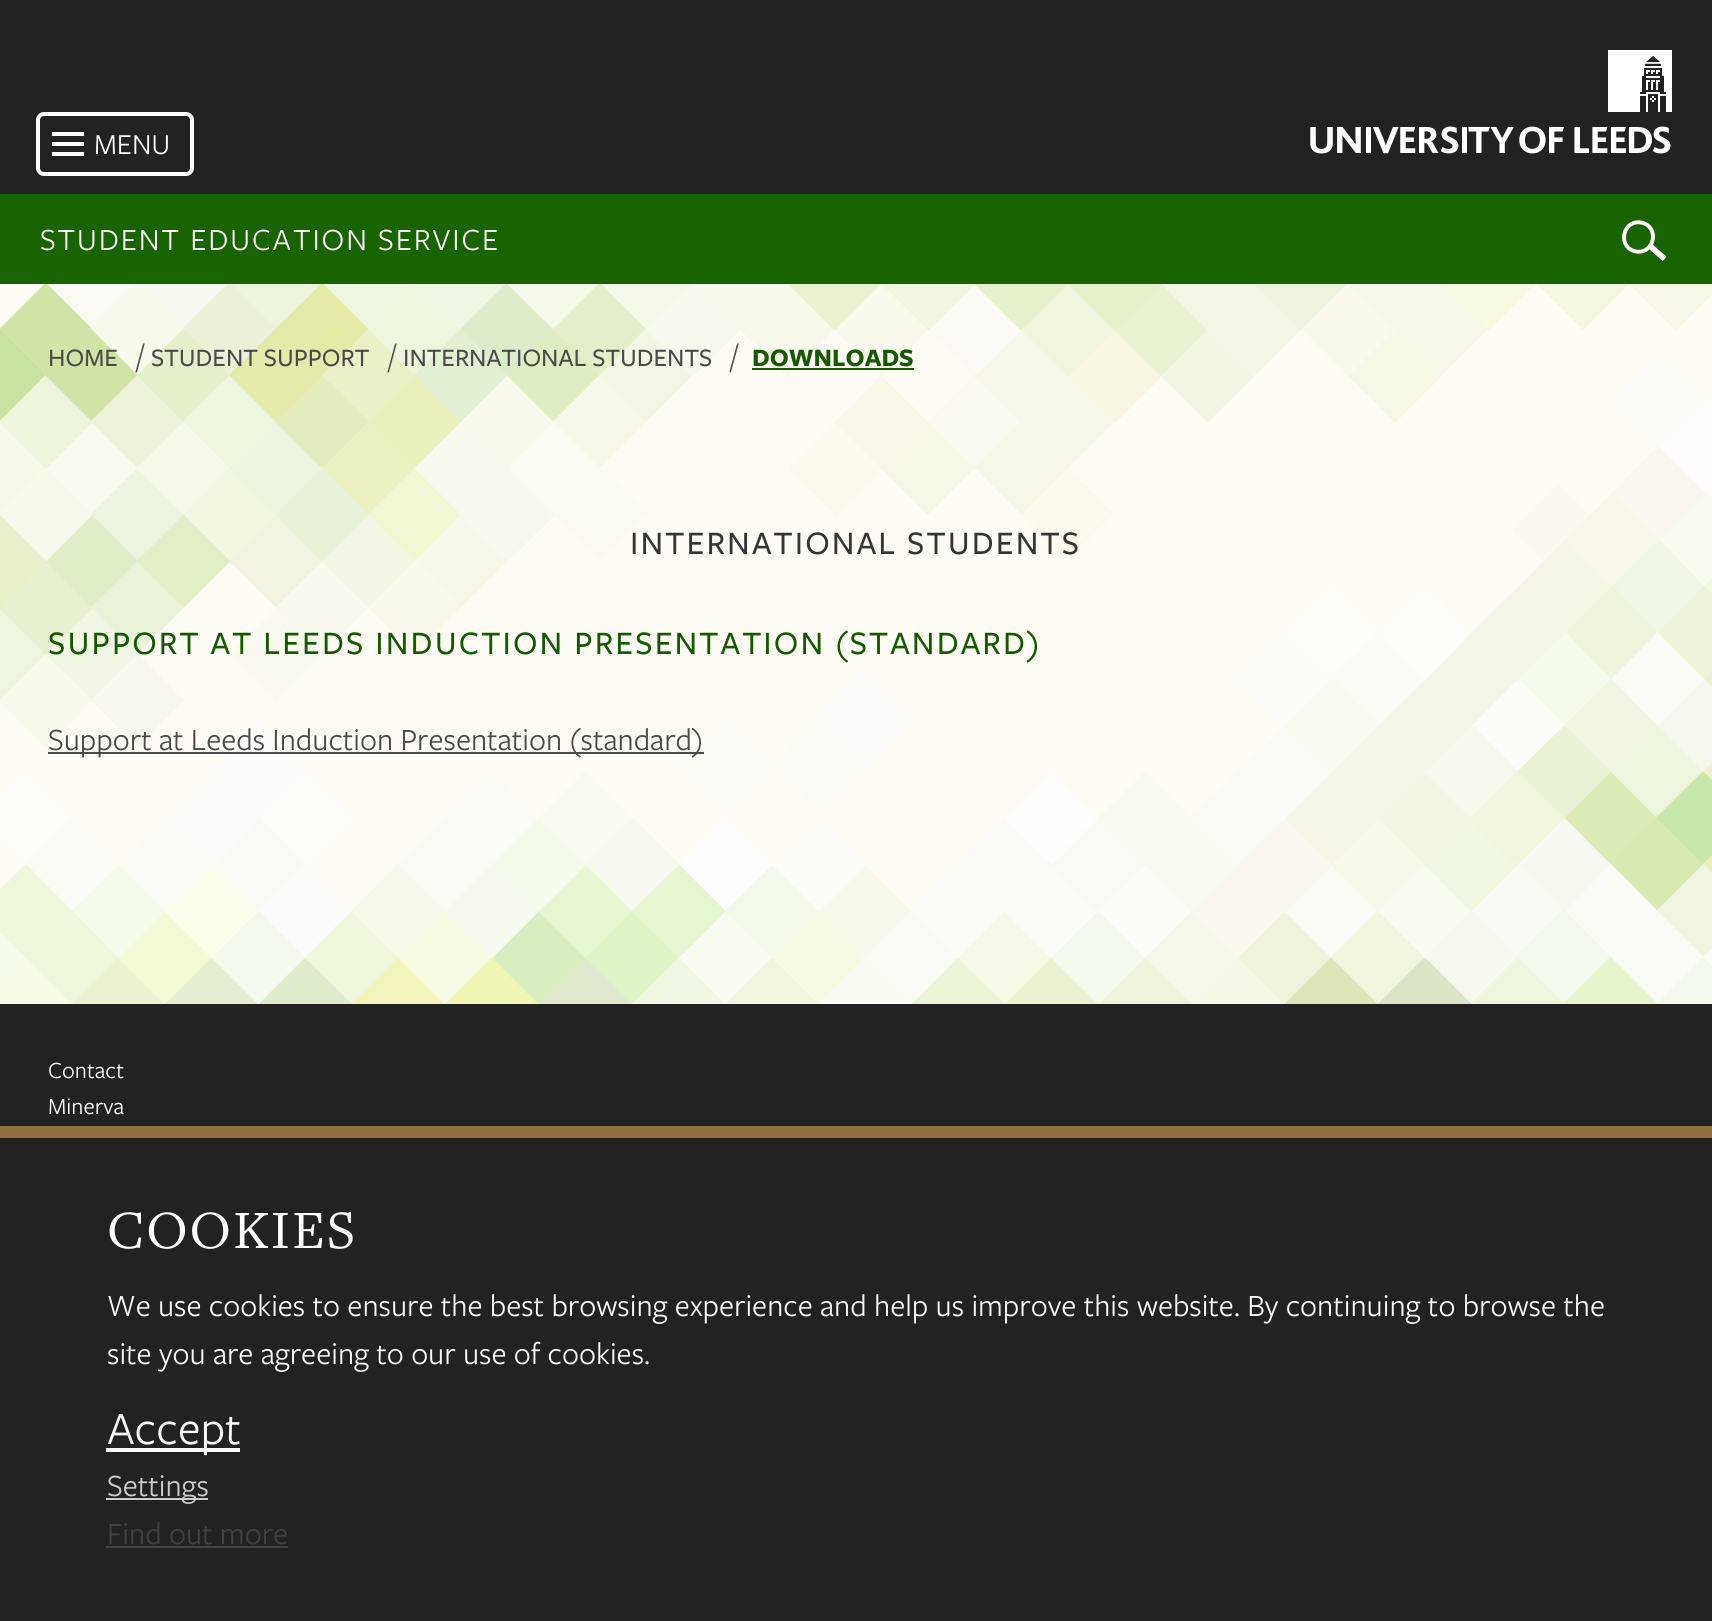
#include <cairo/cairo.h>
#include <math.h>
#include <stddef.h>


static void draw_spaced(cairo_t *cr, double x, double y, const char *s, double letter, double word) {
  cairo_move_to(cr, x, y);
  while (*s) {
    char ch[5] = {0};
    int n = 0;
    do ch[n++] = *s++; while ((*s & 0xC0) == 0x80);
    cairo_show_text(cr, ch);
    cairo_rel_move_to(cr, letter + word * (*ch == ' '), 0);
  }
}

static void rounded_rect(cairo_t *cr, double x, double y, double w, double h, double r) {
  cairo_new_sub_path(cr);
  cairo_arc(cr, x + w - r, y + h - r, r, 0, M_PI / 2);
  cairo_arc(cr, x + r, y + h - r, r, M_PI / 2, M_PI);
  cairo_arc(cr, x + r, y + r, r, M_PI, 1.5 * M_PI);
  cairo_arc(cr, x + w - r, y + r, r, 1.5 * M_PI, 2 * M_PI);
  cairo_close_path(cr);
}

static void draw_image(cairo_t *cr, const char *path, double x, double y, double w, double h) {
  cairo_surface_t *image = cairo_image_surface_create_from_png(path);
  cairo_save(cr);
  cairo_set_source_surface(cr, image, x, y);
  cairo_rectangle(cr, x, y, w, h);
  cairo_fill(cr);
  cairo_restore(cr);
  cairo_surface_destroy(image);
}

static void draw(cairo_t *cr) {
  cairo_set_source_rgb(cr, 34 / 255.0, 34 / 255.0, 34 / 255.0);
  cairo_paint(cr);
  rounded_rect(cr, 38, 114, 154, 60, 6);
  cairo_set_source_rgb(cr, 1, 1, 1);
  cairo_set_line_width(cr, 4);
  cairo_stroke(cr);
  cairo_rectangle(cr, 52, 132, 32, 4);
  cairo_fill(cr);
  cairo_rectangle(cr, 52, 142, 32, 4);
  cairo_fill(cr);
  cairo_rectangle(cr, 52, 152, 32, 4);
  cairo_fill(cr);
  draw_image(cr, "images/1.png", 1608, 50, 64, 62);
  draw_image(cr, "images/2.png", 1310, 126, 361, 28);
  cairo_set_source_rgb(cr, 23 / 255.0, 100 / 255.0, 0);
  cairo_rectangle(cr, 0, 194, 1712, 90);
  cairo_fill(cr);
  cairo_new_path(cr);
  cairo_move_to(cr, 1641, 222.5);
  cairo_curve_to(cr, 1660, 226, 1655, 254.5, 1636, 251.5);
  cairo_curve_to(cr, 1617, 248, 1622, 219.5, 1641, 222.5);
  cairo_close_path(cr);
  cairo_set_source_rgb(cr, 1, 1, 1);
  cairo_set_line_width(cr, 3.9);
  cairo_stroke(cr);
  cairo_new_path(cr);
  cairo_move_to(cr, 1651, 247);
  cairo_line_to(cr, 1662.5, 257);
  cairo_set_line_width(cr, 5.8);
  cairo_set_line_cap(cr, CAIRO_LINE_CAP_SQUARE);
  cairo_stroke(cr);
  cairo_set_source_rgb(cr, 1, 252 / 255.0, 245 / 255.0);
  cairo_rectangle(cr, 0, 284, 1712, 720);
  cairo_fill(cr);
  draw_image(cr, "images/3.png", 0, 284, 1712, 720);
  cairo_set_source_rgb(cr, 21 / 255.0, 89 / 255.0, 2 / 255.0);
  cairo_rectangle(cr, 752, 368, 162, 2);
  cairo_fill(cr);
  cairo_set_source_rgb(cr, 74 / 255.0, 74 / 255.0, 74 / 255.0);
  cairo_rectangle(cr, 48, 752, 656, 2);
  cairo_fill(cr);
  cairo_set_source_rgb(cr, 145 / 255.0, 111 / 255.0, 64 / 255.0);
  cairo_rectangle(cr, 0, 1126, 1712, 12);
  cairo_fill(cr);
  cairo_set_source_rgb(cr, 247 / 255.0, 247 / 255.0, 247 / 255.0);
  cairo_rectangle(cr, 106, 1448, 134, 4);
  cairo_fill(cr);
  cairo_set_source_rgb(cr, 204 / 255.0, 204 / 255.0, 204 / 255.0);
  cairo_rectangle(cr, 106, 1498, 102, 2);
  cairo_fill(cr);
  cairo_set_source_rgb(cr, 66 / 255.0, 66 / 255.0, 66 / 255.0);
  cairo_rectangle(cr, 106, 1546, 182, 2);
  cairo_fill(cr);
  cairo_select_font_face(cr, "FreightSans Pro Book", CAIRO_FONT_SLANT_NORMAL, CAIRO_FONT_WEIGHT_NORMAL);
  cairo_set_font_size(cr, 30);
  cairo_set_source_rgb(cr, 1, 1, 1);
  cairo_move_to(cr, 94, 154);
  cairo_show_text(cr, "MENU");
  cairo_set_font_size(cr, 32);
  draw_spaced(cr, 40, 250, "STUDENT EDUCATION SERVICE", 1.9, 0);
  cairo_select_font_face(cr, "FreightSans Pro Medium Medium", CAIRO_FONT_SLANT_NORMAL, CAIRO_FONT_WEIGHT_NORMAL);
  cairo_set_font_size(cr, 26);
  cairo_set_source_rgb(cr, 74 / 255.0, 74 / 255.0, 74 / 255.0);
  cairo_move_to(cr, 48, 366);
  cairo_show_text(cr, "HOME");
  cairo_select_font_face(cr, "FreightSans Pro Book", CAIRO_FONT_SLANT_NORMAL, CAIRO_FONT_WEIGHT_NORMAL);
  cairo_set_font_size(cr, 32);
  cairo_move_to(cr, 137, 366);
  cairo_show_text(cr, "/");
  cairo_select_font_face(cr, "FreightSans Pro Medium Medium", CAIRO_FONT_SLANT_NORMAL, CAIRO_FONT_WEIGHT_NORMAL);
  cairo_set_font_size(cr, 26);
  cairo_move_to(cr, 151, 366);
  cairo_show_text(cr, "STUDENT SUPPORT");
  cairo_select_font_face(cr, "FreightSans Pro Book", CAIRO_FONT_SLANT_NORMAL, CAIRO_FONT_WEIGHT_NORMAL);
  cairo_set_font_size(cr, 32);
  cairo_move_to(cr, 389, 366);
  cairo_show_text(cr, "/");
  cairo_select_font_face(cr, "FreightSans Pro Medium Medium", CAIRO_FONT_SLANT_NORMAL, CAIRO_FONT_WEIGHT_NORMAL);
  cairo_set_font_size(cr, 26);
  cairo_move_to(cr, 403, 366);
  cairo_show_text(cr, "INTERNATIONAL STUDENTS");
  cairo_select_font_face(cr, "FreightSans Pro Book", CAIRO_FONT_SLANT_NORMAL, CAIRO_FONT_WEIGHT_NORMAL);
  cairo_set_font_size(cr, 32);
  cairo_move_to(cr, 731, 366);
  cairo_show_text(cr, "/");
  cairo_select_font_face(cr, "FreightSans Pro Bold", CAIRO_FONT_SLANT_NORMAL, CAIRO_FONT_WEIGHT_BOLD);
  cairo_set_font_size(cr, 26);
  cairo_set_source_rgb(cr, 21 / 255.0, 89 / 255.0, 2 / 255.0);
  cairo_move_to(cr, 752, 366);
  cairo_show_text(cr, "DOWNLOADS");
  cairo_select_font_face(cr, "FreightSans Pro Medium Medium", CAIRO_FONT_SLANT_NORMAL, CAIRO_FONT_WEIGHT_NORMAL);
  cairo_set_font_size(cr, 34);
  cairo_set_source_rgb(cr, 53 / 255.0, 53 / 255.0, 53 / 255.0);
  draw_spaced(cr, 630, 554, "INTERNATIONAL STUDENTS", 2.12, 0);
  cairo_set_source_rgb(cr, 21 / 255.0, 89 / 255.0, 2 / 255.0);
  draw_spaced(cr, 48, 654, "SUPPORT AT LEEDS INDUCTION PRESENTATION (STANDARD)", 2.12, 0);
  cairo_select_font_face(cr, "FreightSans Pro Book", CAIRO_FONT_SLANT_NORMAL, CAIRO_FONT_WEIGHT_NORMAL);
  cairo_set_font_size(cr, 32);
  cairo_set_source_rgb(cr, 74 / 255.0, 74 / 255.0, 74 / 255.0);
  cairo_move_to(cr, 48, 750);
  cairo_show_text(cr, "Support at Leeds Induction Presentation (standard)");
  cairo_set_font_size(cr, 24);
  cairo_set_source_rgb(cr, 1, 1, 1);
  cairo_move_to(cr, 48, 1078);
  cairo_show_text(cr, "Contact");
  cairo_move_to(cr, 48, 1114);
  cairo_show_text(cr, "Minerva");
  cairo_select_font_face(cr, "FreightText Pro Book", CAIRO_FONT_SLANT_NORMAL, CAIRO_FONT_WEIGHT_NORMAL);
  cairo_set_font_size(cr, 56);
  draw_spaced(cr, 107, 1248, "COOKIES", 2, 0);
  cairo_select_font_face(cr, "FreightSans Pro Book", CAIRO_FONT_SLANT_NORMAL, CAIRO_FONT_WEIGHT_NORMAL);
  cairo_set_font_size(cr, 32);
  cairo_set_source_rgb(cr, 247 / 255.0, 247 / 255.0, 247 / 255.0);
  cairo_move_to(cr, 107, 1316);
  cairo_show_text(cr, "We use cookies to ensure the best browsing experience and help us improve this website. By continuing to browse the");
  cairo_move_to(cr, 107, 1364);
  cairo_show_text(cr, "site you are agreeing to our use of cookies.");
  cairo_set_font_size(cr, 48);
  cairo_move_to(cr, 107, 1444);
  cairo_show_text(cr, "Accept");
  cairo_set_font_size(cr, 32);
  cairo_set_source_rgb(cr, 204 / 255.0, 204 / 255.0, 204 / 255.0);
  cairo_move_to(cr, 107, 1496);
  cairo_show_text(cr, "Settings");
  cairo_set_source_rgb(cr, 66 / 255.0, 66 / 255.0, 66 / 255.0);
  cairo_move_to(cr, 107, 1544);
  cairo_show_text(cr, "Find out more");
}

int main(void) {
  cairo_surface_t *surface = cairo_image_surface_create(CAIRO_FORMAT_RGB24, 1712, 1621);
  cairo_t *cr = cairo_create(surface);
  cairo_font_options_t *options = cairo_font_options_create();
  cairo_font_options_set_hint_metrics(options, CAIRO_HINT_METRICS_OFF);
  cairo_font_options_set_hint_style(options, CAIRO_HINT_STYLE_NONE);
  cairo_set_font_options(cr, options);
  cairo_set_miter_limit(cr, 4);
  draw(cr);
  cairo_surface_write_to_png(surface, "out.png");
  cairo_font_options_destroy(options);
  cairo_destroy(cr);
  cairo_surface_destroy(surface);
  return 0;
}
